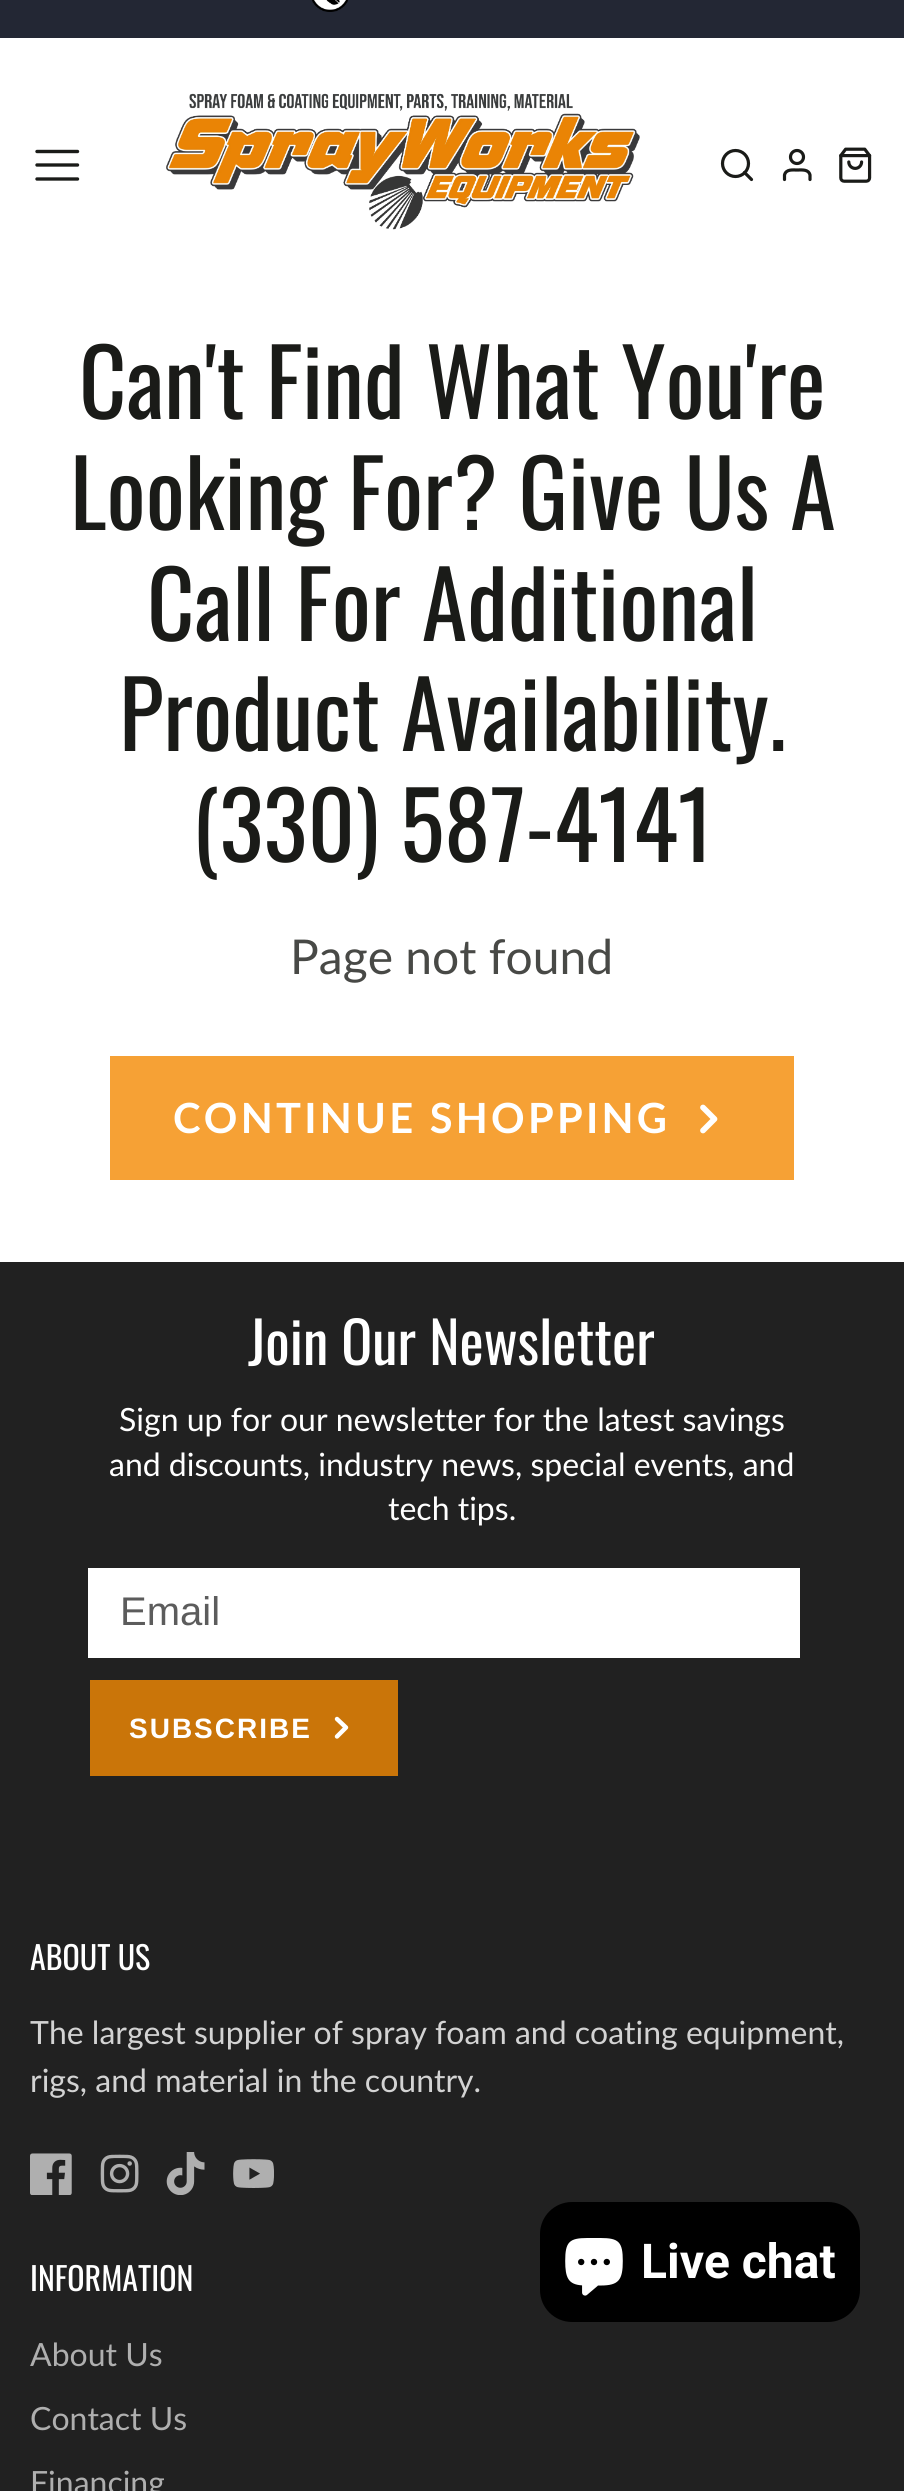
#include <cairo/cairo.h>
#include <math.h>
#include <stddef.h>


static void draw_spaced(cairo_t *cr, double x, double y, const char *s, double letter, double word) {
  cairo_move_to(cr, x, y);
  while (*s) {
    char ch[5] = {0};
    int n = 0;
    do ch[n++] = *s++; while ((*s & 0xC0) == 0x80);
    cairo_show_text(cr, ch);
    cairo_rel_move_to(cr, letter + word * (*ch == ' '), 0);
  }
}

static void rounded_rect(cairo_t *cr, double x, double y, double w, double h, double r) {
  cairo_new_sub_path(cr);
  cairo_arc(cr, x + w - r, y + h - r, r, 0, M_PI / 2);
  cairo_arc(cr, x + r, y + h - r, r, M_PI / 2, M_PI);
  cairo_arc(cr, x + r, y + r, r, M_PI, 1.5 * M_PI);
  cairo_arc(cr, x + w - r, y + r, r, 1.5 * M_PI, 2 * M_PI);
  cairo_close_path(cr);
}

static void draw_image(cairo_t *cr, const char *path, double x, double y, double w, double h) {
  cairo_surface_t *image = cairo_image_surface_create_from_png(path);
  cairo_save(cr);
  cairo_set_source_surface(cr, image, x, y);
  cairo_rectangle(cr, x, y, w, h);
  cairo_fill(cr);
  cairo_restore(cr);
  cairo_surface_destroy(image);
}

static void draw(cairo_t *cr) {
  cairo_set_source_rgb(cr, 1, 1, 1);
  cairo_paint(cr);
  cairo_set_source_rgb(cr, 35 / 255.0, 39 / 255.0, 52 / 255.0);
  cairo_rectangle(cr, 0, 0, 904, 38);
  cairo_fill(cr);
  draw_image(cr, "images/1.png", 312, 0, 36, 12);
  cairo_new_path(cr);
  cairo_move_to(cr, 37, 165);
  cairo_line_to(cr, 77.5, 165);
  cairo_move_to(cr, 37, 151.5);
  cairo_line_to(cr, 77.5, 151.5);
  cairo_move_to(cr, 37, 179);
  cairo_line_to(cr, 77.5, 179);
  cairo_set_source_rgb(cr, 26 / 255.0, 27 / 255.0, 24 / 255.0);
  cairo_set_line_width(cr, 3.4);
  cairo_set_line_cap(cr, CAIRO_LINE_CAP_ROUND);
  cairo_set_line_join(cr, CAIRO_LINE_JOIN_ROUND);
  cairo_stroke(cr);
  draw_image(cr, "images/2.png", 166, 93, 474, 137);
  cairo_arc(cr, 735.5, 163.5, 13, 0, 2 * M_PI);
  cairo_set_line_width(cr, 3.2);
  cairo_set_line_cap(cr, CAIRO_LINE_CAP_BUTT);
  cairo_set_line_join(cr, CAIRO_LINE_JOIN_MITER);
  cairo_stroke(cr);
  cairo_new_path(cr);
  cairo_move_to(cr, 751.5, 179.5);
  cairo_line_to(cr, 744.5, 172.5);
  cairo_set_line_cap(cr, CAIRO_LINE_CAP_ROUND);
  cairo_set_line_join(cr, CAIRO_LINE_JOIN_ROUND);
  cairo_stroke(cr);
  cairo_arc(cr, 797, 157, 6.5, 0, 2 * M_PI);
  cairo_set_line_cap(cr, CAIRO_LINE_CAP_BUTT);
  cairo_set_line_join(cr, CAIRO_LINE_JOIN_MITER);
  cairo_stroke(cr);
  cairo_new_path(cr);
  cairo_move_to(cr, 810, 179.5);
  cairo_line_to(cr, 810, 175);
  cairo_curve_to(cr, 808.5, 169, 802, 170, 797, 170);
  cairo_curve_to(cr, 792.5, 170, 786, 169, 784.5, 175);
  cairo_line_to(cr, 784.5, 179.5);
  cairo_set_line_cap(cr, CAIRO_LINE_CAP_ROUND);
  cairo_set_line_join(cr, CAIRO_LINE_JOIN_ROUND);
  cairo_stroke(cr);
  draw_image(cr, "images/3.png", 839, 147, 33, 36);
  cairo_set_source_rgb(cr, 246 / 255.0, 161 / 255.0, 53 / 255.0);
  cairo_rectangle(cr, 110, 1056, 684, 124);
  cairo_fill(cr);
  cairo_new_path(cr);
  cairo_move_to(cr, 703, 1130.5);
  cairo_line_to(cr, 714.5, 1119);
  cairo_line_to(cr, 703, 1107.5);
  cairo_set_source_rgb(cr, 1, 1, 1);
  cairo_set_line_width(cr, 5.7);
  cairo_stroke(cr);
  cairo_set_source_rgb(cr, 33 / 255.0, 33 / 255.0, 33 / 255.0);
  cairo_rectangle(cr, 0, 1262, 904, 1229);
  cairo_fill(cr);
  cairo_set_source_rgb(cr, 1, 1, 1);
  cairo_rectangle(cr, 88, 1568, 712, 90);
  cairo_fill(cr);
  cairo_set_source_rgb(cr, 202 / 255.0, 117 / 255.0, 9 / 255.0);
  cairo_rectangle(cr, 90, 1680, 308, 96);
  cairo_fill(cr);
  cairo_new_path(cr);
  cairo_move_to(cr, 337, 1736.5);
  cairo_line_to(cr, 346, 1727.5);
  cairo_line_to(cr, 337, 1719);
  cairo_set_source_rgb(cr, 1, 1, 1);
  cairo_set_line_width(cr, 4.4);
  cairo_stroke(cr);
  draw_image(cr, "images/4.png", 30, 2153, 42, 42);
  draw_image(cr, "images/5.png", 100, 2154, 39, 39);
  draw_image(cr, "images/6.png", 166, 2152, 39, 43);
  draw_image(cr, "images/7.png", 233, 2159, 41, 29);
  cairo_set_source_rgb(cr, 0, 0, 0);
  rounded_rect(cr, 540, 2202, 320, 120, 32);
  cairo_fill(cr);
  draw_image(cr, "images/8.png", 565, 2238, 58, 58);
  cairo_select_font_face(cr, "Oswald", CAIRO_FONT_SLANT_NORMAL, CAIRO_FONT_WEIGHT_NORMAL);
  cairo_set_font_size(cr, 92.25);
  cairo_set_source_rgb(cr, 26 / 255.0, 27 / 255.0, 24 / 255.0);
  cairo_move_to(cr, 79, 419);
  cairo_show_text(cr, "Can't Find What You're");
  cairo_move_to(cr, 70, 530);
  cairo_show_text(cr, "Looking For? Give Us A");
  cairo_move_to(cr, 147, 641);
  cairo_show_text(cr, "Call For Additional");
  cairo_move_to(cr, 119, 751);
  cairo_show_text(cr, "Product Availability.");
  cairo_move_to(cr, 192, 862);
  cairo_show_text(cr, "(330) 587-4141");
  cairo_select_font_face(cr, "Lato", CAIRO_FONT_SLANT_NORMAL, CAIRO_FONT_WEIGHT_NORMAL);
  cairo_set_font_size(cr, 48);
  cairo_set_source_rgb(cr, 72 / 255.0, 73 / 255.0, 70 / 255.0);
  cairo_move_to(cr, 290, 974);
  cairo_show_text(cr, "Page not found");
  cairo_select_font_face(cr, "Lato", CAIRO_FONT_SLANT_NORMAL, CAIRO_FONT_WEIGHT_BOLD);
  cairo_set_font_size(cr, 41.6);
  cairo_set_source_rgb(cr, 1, 1, 1);
  draw_spaced(cr, 173, 1133, "CONTINUE SHOPPING", 3.25, 0);
  cairo_select_font_face(cr, "Oswald", CAIRO_FONT_SLANT_NORMAL, CAIRO_FONT_WEIGHT_NORMAL);
  cairo_set_font_size(cr, 57.5);
  cairo_move_to(cr, 248, 1365);
  cairo_show_text(cr, "Join Our Newsletter");
  cairo_select_font_face(cr, "Lato", CAIRO_FONT_SLANT_NORMAL, CAIRO_FONT_WEIGHT_NORMAL);
  cairo_set_font_size(cr, 32);
  cairo_move_to(cr, 119, 1431);
  cairo_show_text(cr, "Sign up for our newsletter for the latest savings");
  cairo_move_to(cr, 109, 1476);
  cairo_show_text(cr, "and discounts, industry news, special events, and");
  cairo_move_to(cr, 388, 1520);
  cairo_show_text(cr, "tech tips.");
  cairo_select_font_face(cr, "Liberation Sans", CAIRO_FONT_SLANT_NORMAL, CAIRO_FONT_WEIGHT_NORMAL);
  cairo_set_font_size(cr, 40);
  cairo_set_source_rgb(cr, 92 / 255.0, 92 / 255.0, 92 / 255.0);
  cairo_move_to(cr, 120, 1625);
  cairo_show_text(cr, "Email");
  cairo_select_font_face(cr, "Liberation Sans", CAIRO_FONT_SLANT_NORMAL, CAIRO_FONT_WEIGHT_BOLD);
  cairo_set_font_size(cr, 28);
  cairo_set_source_rgb(cr, 1, 1, 1);
  draw_spaced(cr, 129, 1738, "SUBSCRIBE", 2, 0);
  cairo_select_font_face(cr, "Oswald", CAIRO_FONT_SLANT_NORMAL, CAIRO_FONT_WEIGHT_NORMAL);
  cairo_set_font_size(cr, 32);
  cairo_move_to(cr, 30, 1970);
  cairo_show_text(cr, "ABOUT US");
  cairo_select_font_face(cr, "Lato", CAIRO_FONT_SLANT_NORMAL, CAIRO_FONT_WEIGHT_NORMAL);
  cairo_set_source_rgb(cr, 211 / 255.0, 211 / 255.0, 211 / 255.0);
  cairo_move_to(cr, 30, 2044);
  cairo_show_text(cr, "The largest supplier of spray foam and coating equipment,");
  cairo_move_to(cr, 30, 2092);
  cairo_show_text(cr, "rigs, and material in the country.");
  cairo_select_font_face(cr, "Oswald", CAIRO_FONT_SLANT_NORMAL, CAIRO_FONT_WEIGHT_NORMAL);
  cairo_set_source_rgb(cr, 1, 1, 1);
  cairo_move_to(cr, 30, 2291);
  cairo_show_text(cr, "INFORMATION");
  cairo_select_font_face(cr, "Lato", CAIRO_FONT_SLANT_NORMAL, CAIRO_FONT_WEIGHT_NORMAL);
  cairo_set_source_rgb(cr, 175 / 255.0, 175 / 255.0, 175 / 255.0);
  cairo_move_to(cr, 30, 2366);
  cairo_show_text(cr, "About Us");
  cairo_move_to(cr, 30, 2430);
  cairo_show_text(cr, "Contact Us");
  cairo_move_to(cr, 30, 2494);
  cairo_show_text(cr, "Financing");
  cairo_select_font_face(cr, "Roboto", CAIRO_FONT_SLANT_NORMAL, CAIRO_FONT_WEIGHT_BOLD);
  cairo_set_font_size(cr, 48);
  cairo_set_source_rgb(cr, 1, 1, 1);
  cairo_move_to(cr, 641, 2278);
  cairo_show_text(cr, "Live chat");
}

int main(void) {
  cairo_surface_t *surface = cairo_image_surface_create(CAIRO_FORMAT_RGB24, 904, 2491);
  cairo_t *cr = cairo_create(surface);
  cairo_font_options_t *options = cairo_font_options_create();
  cairo_font_options_set_hint_metrics(options, CAIRO_HINT_METRICS_OFF);
  cairo_font_options_set_hint_style(options, CAIRO_HINT_STYLE_NONE);
  cairo_set_font_options(cr, options);
  cairo_set_miter_limit(cr, 4);
  draw(cr);
  cairo_surface_write_to_png(surface, "out.png");
  cairo_font_options_destroy(options);
  cairo_destroy(cr);
  cairo_surface_destroy(surface);
  return 0;
}
